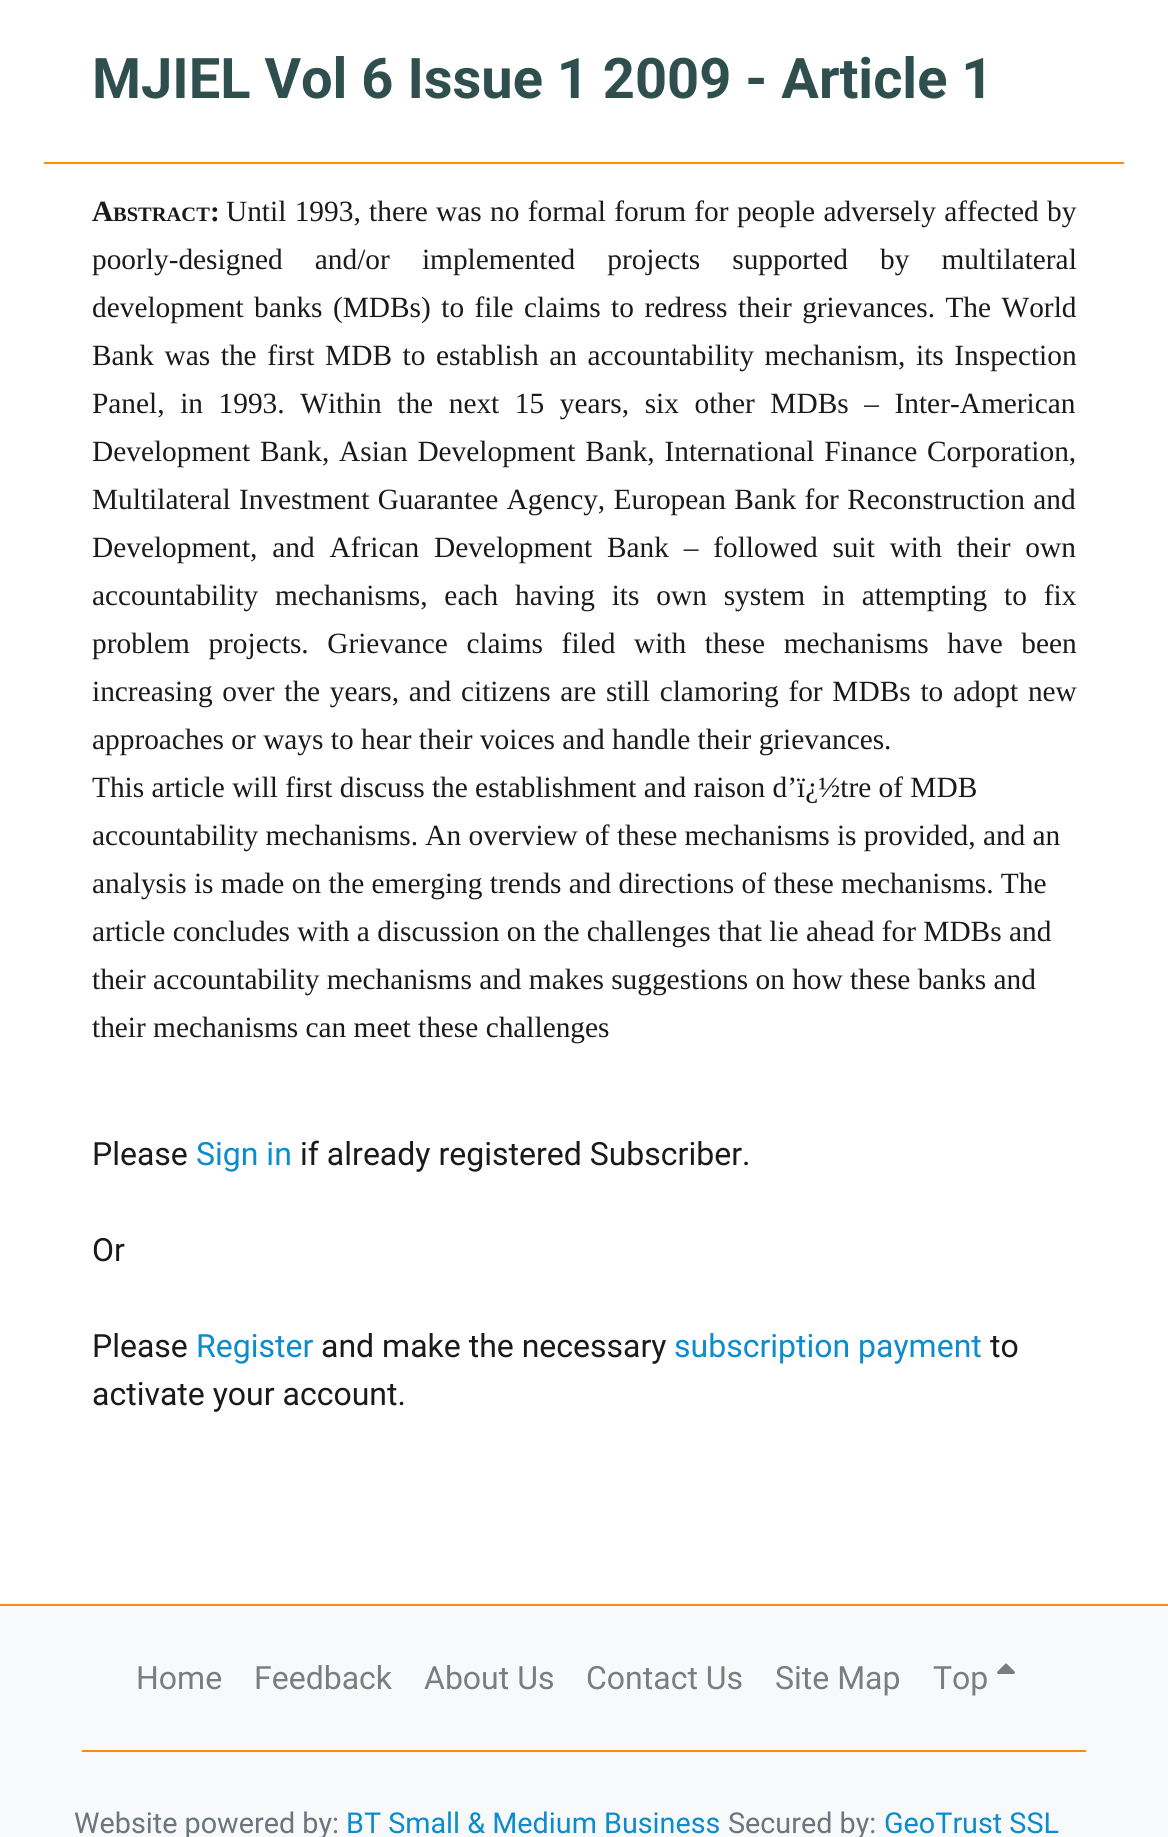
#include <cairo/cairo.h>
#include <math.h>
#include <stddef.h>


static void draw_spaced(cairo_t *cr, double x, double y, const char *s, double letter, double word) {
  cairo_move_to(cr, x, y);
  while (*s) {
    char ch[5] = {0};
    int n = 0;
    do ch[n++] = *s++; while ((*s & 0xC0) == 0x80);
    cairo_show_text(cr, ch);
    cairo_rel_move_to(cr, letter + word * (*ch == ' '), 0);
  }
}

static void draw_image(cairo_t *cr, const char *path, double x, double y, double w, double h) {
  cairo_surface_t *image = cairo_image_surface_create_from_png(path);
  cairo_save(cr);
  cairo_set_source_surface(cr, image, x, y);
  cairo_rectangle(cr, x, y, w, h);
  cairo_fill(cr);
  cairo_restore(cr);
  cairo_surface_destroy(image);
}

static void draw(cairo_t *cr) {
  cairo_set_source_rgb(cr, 1, 1, 1);
  cairo_paint(cr);
  cairo_set_source_rgb(cr, 254 / 255.0, 140 / 255.0, 10 / 255.0);
  cairo_rectangle(cr, 44, 162, 1080, 2);
  cairo_fill(cr);
  cairo_set_source_rgb(cr, 248 / 255.0, 249 / 255.0, 250 / 255.0);
  cairo_rectangle(cr, 0, 1606, 1168, 231);
  cairo_fill(cr);
  cairo_set_source_rgb(cr, 254 / 255.0, 140 / 255.0, 10 / 255.0);
  cairo_rectangle(cr, 0, 1604, 1168, 2);
  cairo_fill(cr);
  cairo_rectangle(cr, 82, 1750, 1004, 2);
  cairo_fill(cr);
  draw_image(cr, "images/1.png", 997, 1663, 18, 11);
  cairo_select_font_face(cr, "Roboto", CAIRO_FONT_SLANT_NORMAL, CAIRO_FONT_WEIGHT_BOLD);
  cairo_set_font_size(cr, 56);
  cairo_set_source_rgb(cr, 47 / 255.0, 79 / 255.0, 79 / 255.0);
  cairo_move_to(cr, 92, 98);
  cairo_show_text(cr, "MJIEL Vol 6 Issue 1 2009 - Article 1");
  cairo_select_font_face(cr, "Liberation Serif", CAIRO_FONT_SLANT_NORMAL, CAIRO_FONT_WEIGHT_BOLD);
  cairo_set_font_size(cr, 29.35);
  cairo_set_source_rgb(cr, 26 / 255.0, 26 / 255.0, 26 / 255.0);
  cairo_move_to(cr, 92, 221);
  cairo_show_text(cr, "A");
  cairo_set_font_size(cr, 20.5);
  cairo_move_to(cr, 113, 221);
  cairo_show_text(cr, "BSTRACT");
  cairo_set_font_size(cr, 29.35);
  cairo_move_to(cr, 210, 221);
  cairo_show_text(cr, ":");
  cairo_select_font_face(cr, "Liberation Serif", CAIRO_FONT_SLANT_NORMAL, CAIRO_FONT_WEIGHT_NORMAL);
  draw_spaced(cr, 226, 221, "Until 1993, there was no formal forum for people adversely affected by", 0, 1);
  draw_spaced(cr, 92, 269, "poorly-designed and/or implemented projects supported by multilateral", 0, 24.75);
  draw_spaced(cr, 92, 317, "development banks (MDBs) to file claims to redress their grievances. The World", 0, 3.1);
  draw_spaced(cr, 92, 365, "Bank was the first MDB to establish an accountability mechanism, its Inspection", 0, 3.25);
  draw_spaced(cr, 92, 413, "Panel, in 1993. Within the next 15 years, six other MDBs – Inter-American", 0, 8.25);
  draw_spaced(cr, 92, 461, "Development Bank, Asian Development Bank, International Finance Corporation,", 0, 2.5);
  draw_spaced(cr, 92, 509, "Multilateral Investment Guarantee Agency, European Bank for Reconstruction and", 0, 1);
  draw_spaced(cr, 92, 557, "Development, and African Development Bank – followed suit with their own", 0, 7.5);
  draw_spaced(cr, 92, 605, "accountability mechanisms, each having its own system in attempting to fix", 0, 9.5);
  draw_spaced(cr, 92, 653, "problem projects. Grievance claims filed with these mechanisms have been", 0, 11.25);
  draw_spaced(cr, 92, 701, "increasing over the years, and citizens are still clamoring for MDBs to adopt new", 0, 2.4);
  cairo_move_to(cr, 92, 749);
  cairo_show_text(cr, "approaches or ways to hear their voices and handle their grievances.");
  cairo_move_to(cr, 92, 797);
  cairo_show_text(cr, "This article will first discuss the establishment and raison d’ï¿½tre of MDB");
  cairo_move_to(cr, 92, 845);
  cairo_show_text(cr, "accountability mechanisms. An overview of these mechanisms is provided, and an");
  cairo_move_to(cr, 92, 893);
  cairo_show_text(cr, "analysis is made on the emerging trends and directions of these mechanisms. The");
  cairo_move_to(cr, 92, 941);
  cairo_show_text(cr, "article concludes with a discussion on the challenges that lie ahead for MDBs and");
  cairo_move_to(cr, 92, 989);
  cairo_show_text(cr, "their accountability mechanisms and makes suggestions on how these banks and");
  cairo_move_to(cr, 92, 1037);
  cairo_show_text(cr, "their mechanisms can meet these challenges");
  cairo_select_font_face(cr, "Roboto", CAIRO_FONT_SLANT_NORMAL, CAIRO_FONT_WEIGHT_NORMAL);
  cairo_set_font_size(cr, 32);
  cairo_move_to(cr, 92, 1165);
  cairo_show_text(cr, "Please");
  cairo_set_source_rgb(cr, 12 / 255.0, 139 / 255.0, 205 / 255.0);
  cairo_move_to(cr, 196, 1165);
  cairo_show_text(cr, "Sign in");
  cairo_set_source_rgb(cr, 26 / 255.0, 26 / 255.0, 26 / 255.0);
  cairo_move_to(cr, 300, 1165);
  cairo_show_text(cr, "if already registered Subscriber.");
  cairo_move_to(cr, 92, 1261);
  cairo_show_text(cr, "Or");
  cairo_move_to(cr, 92, 1357);
  cairo_show_text(cr, "Please");
  cairo_set_source_rgb(cr, 12 / 255.0, 139 / 255.0, 205 / 255.0);
  cairo_move_to(cr, 196, 1357);
  cairo_show_text(cr, "Register");
  cairo_set_source_rgb(cr, 26 / 255.0, 26 / 255.0, 26 / 255.0);
  cairo_move_to(cr, 321, 1357);
  cairo_show_text(cr, "and make the necessary");
  cairo_set_source_rgb(cr, 12 / 255.0, 139 / 255.0, 205 / 255.0);
  cairo_move_to(cr, 674, 1357);
  cairo_show_text(cr, "subscription payment");
  cairo_set_source_rgb(cr, 26 / 255.0, 26 / 255.0, 26 / 255.0);
  cairo_move_to(cr, 990, 1357);
  cairo_show_text(cr, "to");
  cairo_move_to(cr, 92, 1405);
  cairo_show_text(cr, "activate your account.");
  cairo_set_source_rgb(cr, 124 / 255.0, 125 / 255.0, 125 / 255.0);
  cairo_move_to(cr, 136, 1689);
  cairo_show_text(cr, "Home");
  cairo_move_to(cr, 254, 1689);
  cairo_show_text(cr, "Feedback");
  cairo_move_to(cr, 424, 1689);
  cairo_show_text(cr, "About Us");
  cairo_move_to(cr, 586, 1689);
  cairo_show_text(cr, "Contact Us");
  cairo_move_to(cr, 775, 1689);
  cairo_show_text(cr, "Site Map");
  cairo_move_to(cr, 933, 1689);
  cairo_show_text(cr, "Top");
  cairo_set_font_size(cr, 28.75);
  cairo_set_source_rgb(cr, 108 / 255.0, 117 / 255.0, 125 / 255.0);
  cairo_move_to(cr, 74, 1833);
  cairo_show_text(cr, "Website powered by:");
  cairo_set_source_rgb(cr, 12 / 255.0, 139 / 255.0, 205 / 255.0);
  cairo_move_to(cr, 346, 1833);
  cairo_show_text(cr, "BT Small & Medium Business");
  cairo_set_source_rgb(cr, 108 / 255.0, 117 / 255.0, 125 / 255.0);
  cairo_move_to(cr, 728, 1833);
  cairo_show_text(cr, "Secured by:");
  cairo_set_source_rgb(cr, 12 / 255.0, 139 / 255.0, 205 / 255.0);
  cairo_move_to(cr, 884, 1833);
  cairo_show_text(cr, "GeoTrust SSL");
}

int main(void) {
  cairo_surface_t *surface = cairo_image_surface_create(CAIRO_FORMAT_RGB24, 1168, 1837);
  cairo_t *cr = cairo_create(surface);
  cairo_font_options_t *options = cairo_font_options_create();
  cairo_font_options_set_hint_metrics(options, CAIRO_HINT_METRICS_OFF);
  cairo_font_options_set_hint_style(options, CAIRO_HINT_STYLE_NONE);
  cairo_set_font_options(cr, options);
  cairo_set_miter_limit(cr, 4);
  draw(cr);
  cairo_surface_write_to_png(surface, "out.png");
  cairo_font_options_destroy(options);
  cairo_destroy(cr);
  cairo_surface_destroy(surface);
  return 0;
}
